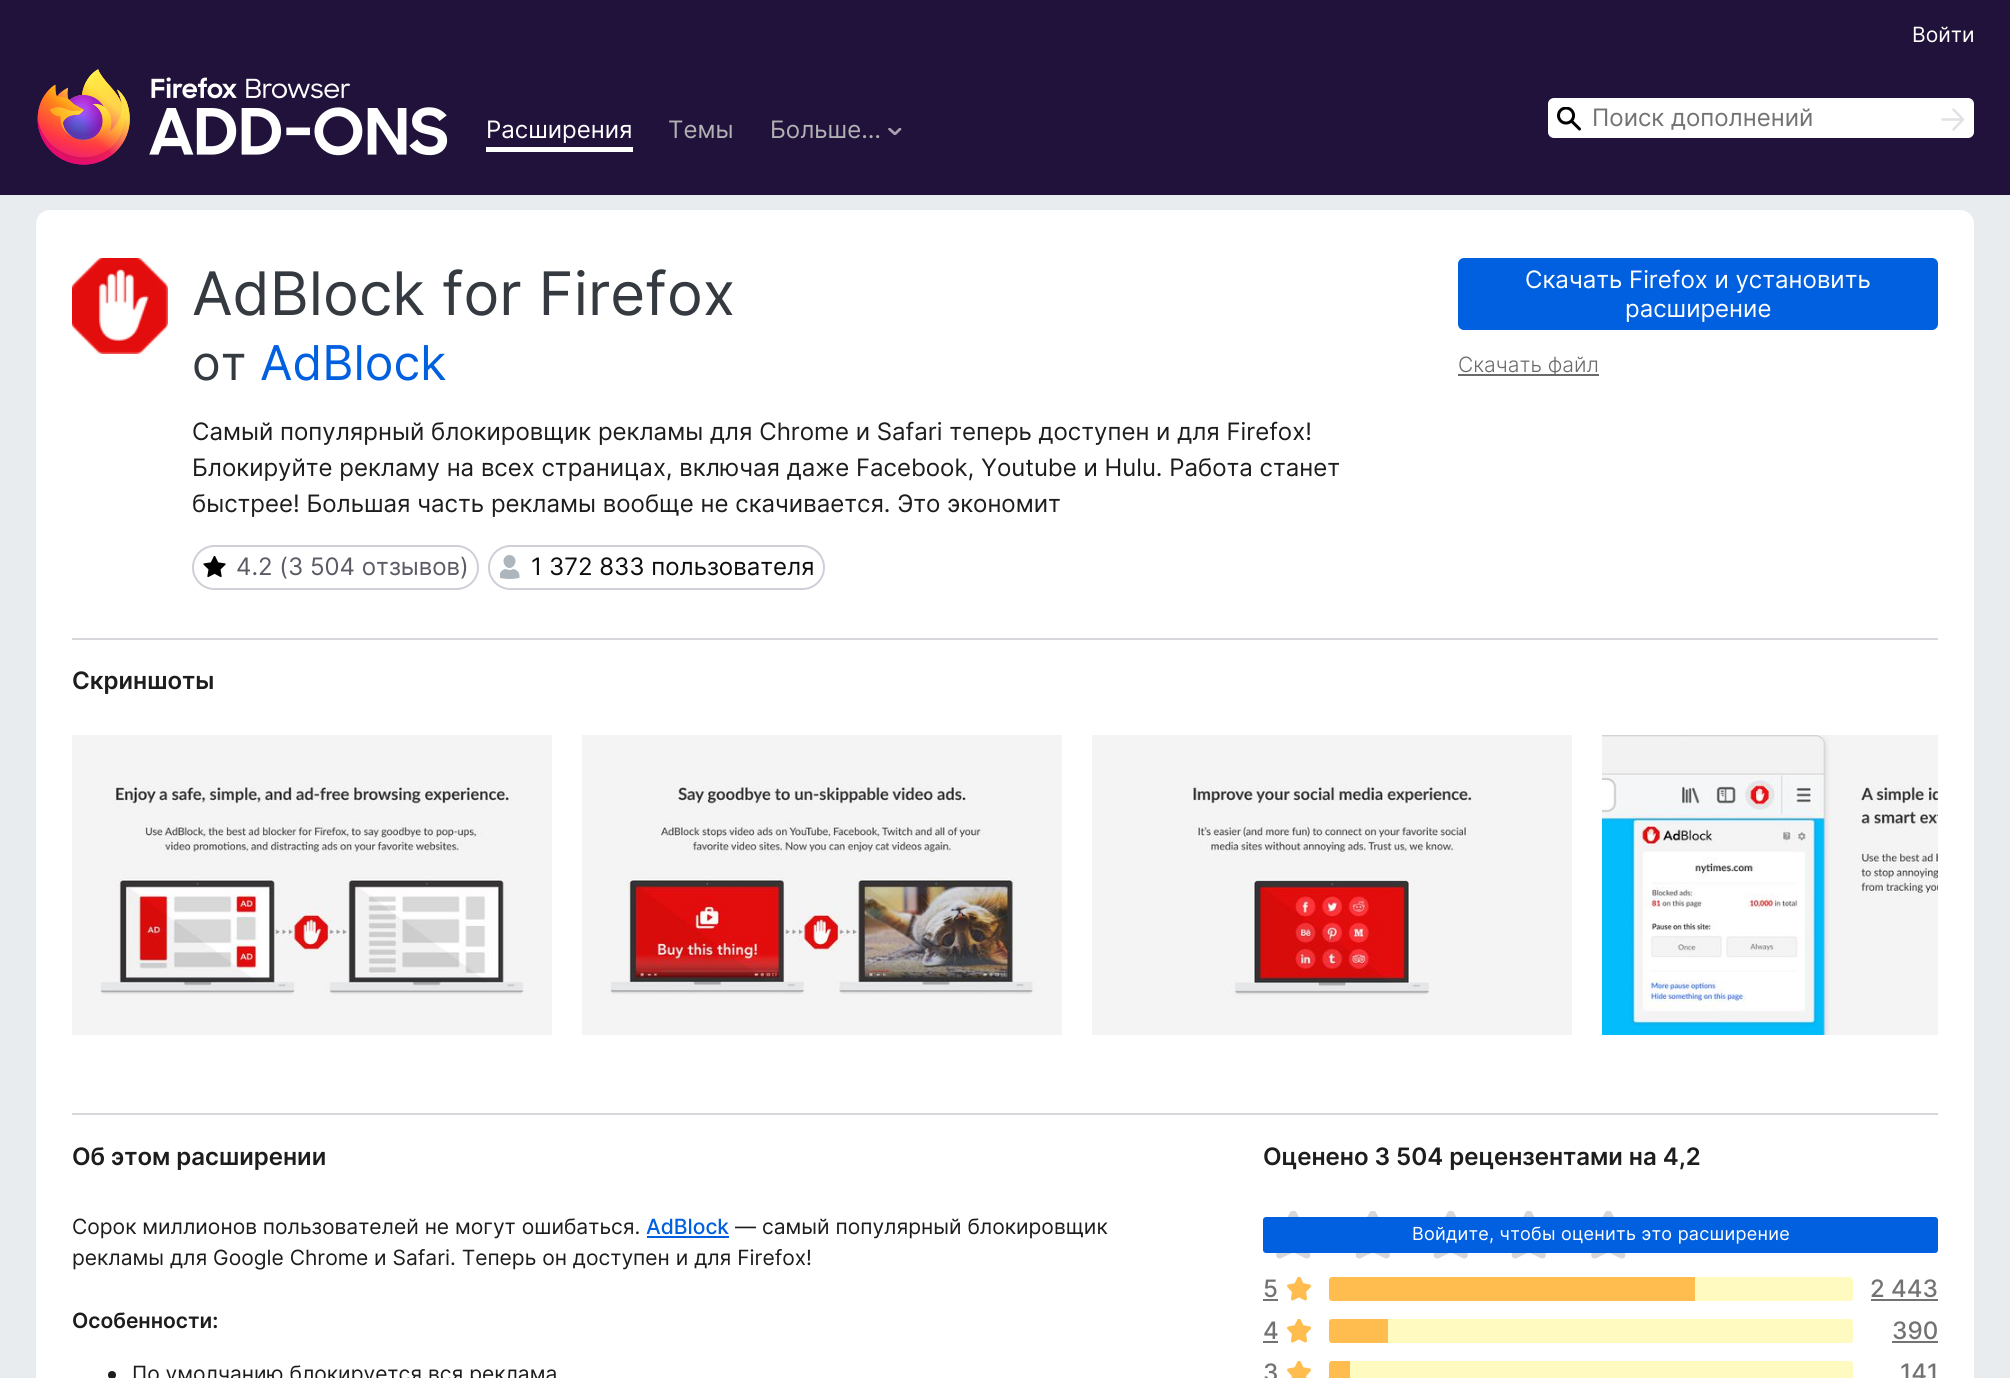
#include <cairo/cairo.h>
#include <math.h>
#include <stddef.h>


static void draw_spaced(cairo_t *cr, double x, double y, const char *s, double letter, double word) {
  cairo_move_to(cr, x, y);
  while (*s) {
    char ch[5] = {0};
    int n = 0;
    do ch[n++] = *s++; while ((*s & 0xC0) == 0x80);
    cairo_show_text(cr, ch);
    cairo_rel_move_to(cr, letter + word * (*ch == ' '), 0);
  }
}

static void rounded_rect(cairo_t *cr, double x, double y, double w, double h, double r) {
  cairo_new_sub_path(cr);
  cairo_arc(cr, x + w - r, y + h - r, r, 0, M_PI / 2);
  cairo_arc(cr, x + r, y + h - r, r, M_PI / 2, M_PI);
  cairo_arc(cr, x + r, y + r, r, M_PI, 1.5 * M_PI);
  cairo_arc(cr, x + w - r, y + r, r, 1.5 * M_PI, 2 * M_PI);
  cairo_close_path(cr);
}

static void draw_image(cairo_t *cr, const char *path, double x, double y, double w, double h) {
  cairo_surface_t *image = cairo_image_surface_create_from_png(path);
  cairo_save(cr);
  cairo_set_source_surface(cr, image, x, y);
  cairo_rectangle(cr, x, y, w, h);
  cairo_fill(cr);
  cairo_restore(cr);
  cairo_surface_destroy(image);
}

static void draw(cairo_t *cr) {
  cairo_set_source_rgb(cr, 32 / 255.0, 18 / 255.0, 58 / 255.0);
  cairo_paint(cr);
  draw_image(cr, "images/1.png", 37, 69, 411, 96);
  cairo_set_source_rgb(cr, 1, 1, 1);
  cairo_rectangle(cr, 486, 147, 147, 5);
  cairo_fill(cr);
  cairo_save(cr);
  cairo_rectangle(cr, 888, 128, 14, 7);
  cairo_clip(cr);
  cairo_new_path(cr);
  cairo_move_to(cr, 900, 129);
  cairo_line_to(cr, 895, 134);
  cairo_line_to(cr, 889.5, 129);
  cairo_set_source_rgb(cr, 166 / 255.0, 160 / 255.0, 176 / 255.0);
  cairo_set_line_width(cr, 2.7);
  cairo_set_line_cap(cr, CAIRO_LINE_CAP_ROUND);
  cairo_set_line_join(cr, CAIRO_LINE_JOIN_ROUND);
  cairo_stroke(cr);
  cairo_restore(cr);
  rounded_rect(cr, 1549, 99, 424, 38, 5);
  cairo_fill_preserve(cr);
  cairo_stroke(cr);
  draw_image(cr, "images/2.png", 1557, 107, 24, 24);
  cairo_new_path(cr);
  cairo_move_to(cr, 1942.5, 119.5);
  cairo_line_to(cr, 1962, 119.5);
  cairo_move_to(cr, 1953.5, 109.5);
  cairo_line_to(cr, 1963, 119.5);
  cairo_line_to(cr, 1953.5, 129.5);
  cairo_set_source_rgb(cr, 225 / 255.0, 225 / 255.0, 229 / 255.0);
  cairo_set_line_width(cr, 2.5);
  cairo_set_line_cap(cr, CAIRO_LINE_CAP_ROUND);
  cairo_set_line_join(cr, CAIRO_LINE_JOIN_ROUND);
  cairo_stroke(cr);
  cairo_set_source_rgb(cr, 233 / 255.0, 236 / 255.0, 239 / 255.0);
  cairo_rectangle(cr, 0, 195, 2010, 1183);
  cairo_fill(cr);
  cairo_set_source_rgb(cr, 1, 1, 1);
  rounded_rect(cr, 36, 210, 1938, 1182, 14);
  cairo_fill(cr);
  draw_image(cr, "images/3.png", 72, 258, 96, 96);
  cairo_set_source_rgb(cr, 0, 96 / 255.0, 223 / 255.0);
  rounded_rect(cr, 1458, 258, 480, 72, 6);
  cairo_fill(cr);
  cairo_set_source_rgb(cr, 106 / 255.0, 106 / 255.0, 106 / 255.0);
  cairo_rectangle(cr, 1458, 374, 141, 2);
  cairo_fill(cr);
  rounded_rect(cr, 193, 546, 285, 43, 21.5);
  cairo_set_source_rgb(cr, 207 / 255.0, 207 / 255.0, 216 / 255.0);
  cairo_set_line_width(cr, 2);
  cairo_set_line_cap(cr, CAIRO_LINE_CAP_BUTT);
  cairo_set_line_join(cr, CAIRO_LINE_JOIN_MITER);
  cairo_stroke(cr);
  draw_image(cr, "images/4.png", 203, 555, 23, 23);
  rounded_rect(cr, 489, 546, 335, 43, 21.5);
  cairo_stroke(cr);
  draw_image(cr, "images/5.png", 500, 555, 20, 24);
  cairo_set_source_rgb(cr, 215 / 255.0, 215 / 255.0, 219 / 255.0);
  cairo_rectangle(cr, 72, 638, 1866, 2);
  cairo_fill(cr);
  draw_image(cr, "images/6.png", 72, 735, 480, 300);
  draw_image(cr, "images/7.png", 582, 735, 480, 300);
  draw_image(cr, "images/8.png", 1092, 735, 480, 300);
  draw_image(cr, "images/9.png", 1602, 735, 336, 300);
  cairo_rectangle(cr, 72, 1113, 1866, 2);
  cairo_fill(cr);
  cairo_set_source_rgb(cr, 0, 96 / 255.0, 223 / 255.0);
  cairo_rectangle(cr, 647, 1236, 82, 2);
  cairo_fill(cr);
  cairo_set_source_rgb(cr, 29 / 255.0, 29 / 255.0, 29 / 255.0);
  cairo_arc(cr, 112, 1375, 4, 0, 2 * M_PI);
  cairo_fill(cr);
  draw_image(cr, "images/10.png", 1276, 1211, 35, 48);
  draw_image(cr, "images/11.png", 1355, 1211, 35, 48);
  draw_image(cr, "images/11.png", 1433, 1211, 35, 48);
  draw_image(cr, "images/11.png", 1511, 1211, 35, 48);
  draw_image(cr, "images/10.png", 1591, 1211, 35, 48);
  cairo_set_source_rgb(cr, 0, 96 / 255.0, 223 / 255.0);
  rounded_rect(cr, 1263, 1217, 675, 36, 3);
  cairo_fill(cr);
  cairo_set_source_rgb(cr, 115 / 255.0, 115 / 255.0, 115 / 255.0);
  cairo_rectangle(cr, 1263, 1299, 15, 2);
  cairo_fill(cr);
  draw_image(cr, "images/12.png", 1287, 1277, 24, 24);
  cairo_set_source_rgb(cr, 1, 250 / 255.0, 191 / 255.0);
  rounded_rect(cr, 1329, 1277, 524, 24, 3);
  cairo_fill(cr);
  cairo_set_source_rgb(cr, 1, 189 / 255.0, 79 / 255.0);
  cairo_new_path(cr);
  cairo_move_to(cr, 1332, 1277);
  cairo_line_to(cr, 1695, 1277);
  cairo_line_to(cr, 1695, 1301);
  cairo_line_to(cr, 1332, 1301);
  cairo_curve_to(cr, 1330.5, 1301, 1329, 1299.5, 1329, 1298);
  cairo_line_to(cr, 1329, 1280);
  cairo_curve_to(cr, 1329, 1278.5, 1330.5, 1277, 1332, 1277);
  cairo_close_path(cr);
  cairo_fill(cr);
  cairo_set_source_rgb(cr, 115 / 255.0, 115 / 255.0, 115 / 255.0);
  cairo_rectangle(cr, 1871, 1299, 67, 2);
  cairo_fill(cr);
  cairo_rectangle(cr, 1263, 1341, 15, 2);
  cairo_fill(cr);
  draw_image(cr, "images/12.png", 1287, 1319, 24, 24);
  cairo_set_source_rgb(cr, 1, 250 / 255.0, 191 / 255.0);
  rounded_rect(cr, 1329, 1319, 524, 24, 3);
  cairo_fill(cr);
  cairo_set_source_rgb(cr, 1, 189 / 255.0, 79 / 255.0);
  cairo_new_path(cr);
  cairo_move_to(cr, 1332, 1319);
  cairo_line_to(cr, 1388, 1319);
  cairo_line_to(cr, 1388, 1343);
  cairo_line_to(cr, 1332, 1343);
  cairo_curve_to(cr, 1330.5, 1343, 1329, 1341.5, 1329, 1340);
  cairo_line_to(cr, 1329, 1322);
  cairo_curve_to(cr, 1329, 1320.5, 1330.5, 1319, 1332, 1319);
  cairo_close_path(cr);
  cairo_fill(cr);
  cairo_set_source_rgb(cr, 115 / 255.0, 115 / 255.0, 115 / 255.0);
  cairo_rectangle(cr, 1892, 1341, 46, 2);
  cairo_fill(cr);
  draw_image(cr, "images/13.png", 1287, 1361, 24, 17);
  cairo_set_source_rgb(cr, 1, 250 / 255.0, 191 / 255.0);
  rounded_rect(cr, 1329, 1361, 524, 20, 3);
  cairo_fill(cr);
  cairo_set_source_rgb(cr, 1, 189 / 255.0, 79 / 255.0);
  cairo_new_path(cr);
  cairo_move_to(cr, 1332, 1361);
  cairo_line_to(cr, 1350, 1361);
  cairo_line_to(cr, 1350, 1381);
  cairo_line_to(cr, 1332, 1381);
  cairo_curve_to(cr, 1330.5, 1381, 1329, 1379.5, 1329, 1378);
  cairo_line_to(cr, 1329, 1364);
  cairo_curve_to(cr, 1329, 1362.5, 1330.5, 1361, 1332, 1361);
  cairo_close_path(cr);
  cairo_fill(cr);
  cairo_select_font_face(cr, "Inter", CAIRO_FONT_SLANT_NORMAL, CAIRO_FONT_WEIGHT_NORMAL);
  cairo_set_font_size(cr, 21);
  cairo_set_source_rgb(cr, 1, 1, 1);
  cairo_move_to(cr, 1912, 42);
  cairo_show_text(cr, "Войти");
  cairo_set_font_size(cr, 24);
  cairo_move_to(cr, 486, 138);
  cairo_show_text(cr, "Расширения");
  cairo_set_source_rgb(cr, 177 / 255.0, 177 / 255.0, 179 / 255.0);
  cairo_move_to(cr, 668, 138);
  cairo_show_text(cr, "Темы");
  cairo_move_to(cr, 770, 138);
  cairo_show_text(cr, "Больше…");
  cairo_set_source_rgb(cr, 115 / 255.0, 115 / 255.0, 115 / 255.0);
  cairo_move_to(cr, 1592, 126);
  cairo_show_text(cr, "Поиск дополнений");
  cairo_set_font_size(cr, 60);
  cairo_set_source_rgb(cr, 52 / 255.0, 58 / 255.0, 64 / 255.0);
  cairo_move_to(cr, 192, 315);
  cairo_show_text(cr, "AdBlock for Firefox");
  cairo_set_font_size(cr, 48);
  cairo_move_to(cr, 192, 380);
  cairo_show_text(cr, "от");
  cairo_set_source_rgb(cr, 0, 96 / 255.0, 223 / 255.0);
  cairo_move_to(cr, 260, 380);
  cairo_show_text(cr, "AdBlock");
  cairo_set_font_size(cr, 24);
  cairo_set_source_rgb(cr, 29 / 255.0, 29 / 255.0, 29 / 255.0);
  cairo_move_to(cr, 192, 440);
  cairo_show_text(cr, "Самый популярный блокировщик рекламы для Chrome и Safari теперь доступен и для Firefox!");
  cairo_move_to(cr, 192, 476);
  cairo_show_text(cr, "Блокируйте рекламу на всех страницах, включая даже Facebook, Youtube и Hulu. Работа станет");
  cairo_move_to(cr, 192, 512);
  cairo_show_text(cr, "быстрее! Большая часть рекламы вообще не скачивается. Это экономит");
  cairo_set_source_rgb(cr, 1, 1, 1);
  cairo_move_to(cr, 1525, 288);
  cairo_show_text(cr, "Скачать Firefox и установить");
  cairo_move_to(cr, 1625, 317);
  cairo_show_text(cr, "расширение");
  cairo_select_font_face(cr, "Inter Light", CAIRO_FONT_SLANT_NORMAL, CAIRO_FONT_WEIGHT_NORMAL);
  cairo_set_font_size(cr, 21);
  cairo_set_source_rgb(cr, 106 / 255.0, 106 / 255.0, 106 / 255.0);
  cairo_move_to(cr, 1458, 372);
  cairo_show_text(cr, "Скачать файл");
  cairo_select_font_face(cr, "Inter", CAIRO_FONT_SLANT_NORMAL, CAIRO_FONT_WEIGHT_NORMAL);
  cairo_set_font_size(cr, 24);
  cairo_set_source_rgb(cr, 91 / 255.0, 91 / 255.0, 102 / 255.0);
  cairo_move_to(cr, 236, 575);
  cairo_show_text(cr, "4.2 (3 504 отзывов)");
  cairo_set_source_rgb(cr, 12 / 255.0, 12 / 255.0, 13 / 255.0);
  cairo_move_to(cr, 531, 575);
  cairo_show_text(cr, "1 372 833 пользователя");
  cairo_select_font_face(cr, "Inter SemiBold", CAIRO_FONT_SLANT_NORMAL, CAIRO_FONT_WEIGHT_NORMAL);
  cairo_set_source_rgb(cr, 29 / 255.0, 29 / 255.0, 29 / 255.0);
  cairo_move_to(cr, 72, 689);
  cairo_show_text(cr, "Скриншоты");
  cairo_move_to(cr, 72, 1165);
  cairo_show_text(cr, "Об этом расширении");
  cairo_select_font_face(cr, "Inter", CAIRO_FONT_SLANT_NORMAL, CAIRO_FONT_WEIGHT_NORMAL);
  cairo_set_font_size(cr, 21);
  cairo_move_to(cr, 72, 1234);
  cairo_show_text(cr, "Сорок миллионов пользователей не могут ошибаться.");
  cairo_select_font_face(cr, "Inter Medium", CAIRO_FONT_SLANT_NORMAL, CAIRO_FONT_WEIGHT_NORMAL);
  cairo_set_source_rgb(cr, 0, 96 / 255.0, 223 / 255.0);
  cairo_move_to(cr, 646, 1234);
  cairo_show_text(cr, "AdBlock");
  cairo_select_font_face(cr, "Inter", CAIRO_FONT_SLANT_NORMAL, CAIRO_FONT_WEIGHT_NORMAL);
  cairo_set_source_rgb(cr, 29 / 255.0, 29 / 255.0, 29 / 255.0);
  cairo_move_to(cr, 735, 1234);
  cairo_show_text(cr, "— самый популярный блокировщик");
  cairo_move_to(cr, 72, 1265);
  cairo_show_text(cr, "рекламы для Google Chrome и Safari. Теперь он доступен и для Firefox!");
  cairo_select_font_face(cr, "Inter SemiBold", CAIRO_FONT_SLANT_NORMAL, CAIRO_FONT_WEIGHT_NORMAL);
  cairo_move_to(cr, 72, 1328);
  cairo_show_text(cr, "Особенности:");
  cairo_select_font_face(cr, "Inter", CAIRO_FONT_SLANT_NORMAL, CAIRO_FONT_WEIGHT_NORMAL);
  cairo_move_to(cr, 132, 1381);
  cairo_show_text(cr, "По умолчанию блокируется вся реклама");
  cairo_select_font_face(cr, "Inter SemiBold", CAIRO_FONT_SLANT_NORMAL, CAIRO_FONT_WEIGHT_NORMAL);
  cairo_set_font_size(cr, 24);
  cairo_move_to(cr, 1263, 1165);
  cairo_show_text(cr, "Оценено 3 504 рецензентами на 4,2");
  cairo_select_font_face(cr, "Inter", CAIRO_FONT_SLANT_NORMAL, CAIRO_FONT_WEIGHT_NORMAL);
  cairo_set_font_size(cr, 18);
  cairo_set_source_rgb(cr, 1, 1, 1);
  draw_spaced(cr, 1412, 1240, "Войдите, чтобы оценить это расширение", 0.25, 0);
  cairo_select_font_face(cr, "Inter Medium", CAIRO_FONT_SLANT_NORMAL, CAIRO_FONT_WEIGHT_NORMAL);
  cairo_set_font_size(cr, 24);
  cairo_set_source_rgb(cr, 115 / 255.0, 115 / 255.0, 115 / 255.0);
  cairo_move_to(cr, 1263, 1297);
  cairo_show_text(cr, "5");
  cairo_move_to(cr, 1870, 1297);
  cairo_show_text(cr, "2 443");
  cairo_move_to(cr, 1263, 1339);
  cairo_show_text(cr, "4");
  cairo_move_to(cr, 1892, 1339);
  cairo_show_text(cr, "390");
  cairo_move_to(cr, 1263, 1381);
  cairo_show_text(cr, "3");
  cairo_move_to(cr, 1900, 1381);
  cairo_show_text(cr, "141");
}

int main(void) {
  cairo_surface_t *surface = cairo_image_surface_create(CAIRO_FORMAT_RGB24, 2010, 1378);
  cairo_t *cr = cairo_create(surface);
  cairo_font_options_t *options = cairo_font_options_create();
  cairo_font_options_set_hint_metrics(options, CAIRO_HINT_METRICS_OFF);
  cairo_font_options_set_hint_style(options, CAIRO_HINT_STYLE_NONE);
  cairo_set_font_options(cr, options);
  cairo_set_miter_limit(cr, 4);
  draw(cr);
  cairo_surface_write_to_png(surface, "out.png");
  cairo_font_options_destroy(options);
  cairo_destroy(cr);
  cairo_surface_destroy(surface);
  return 0;
}
